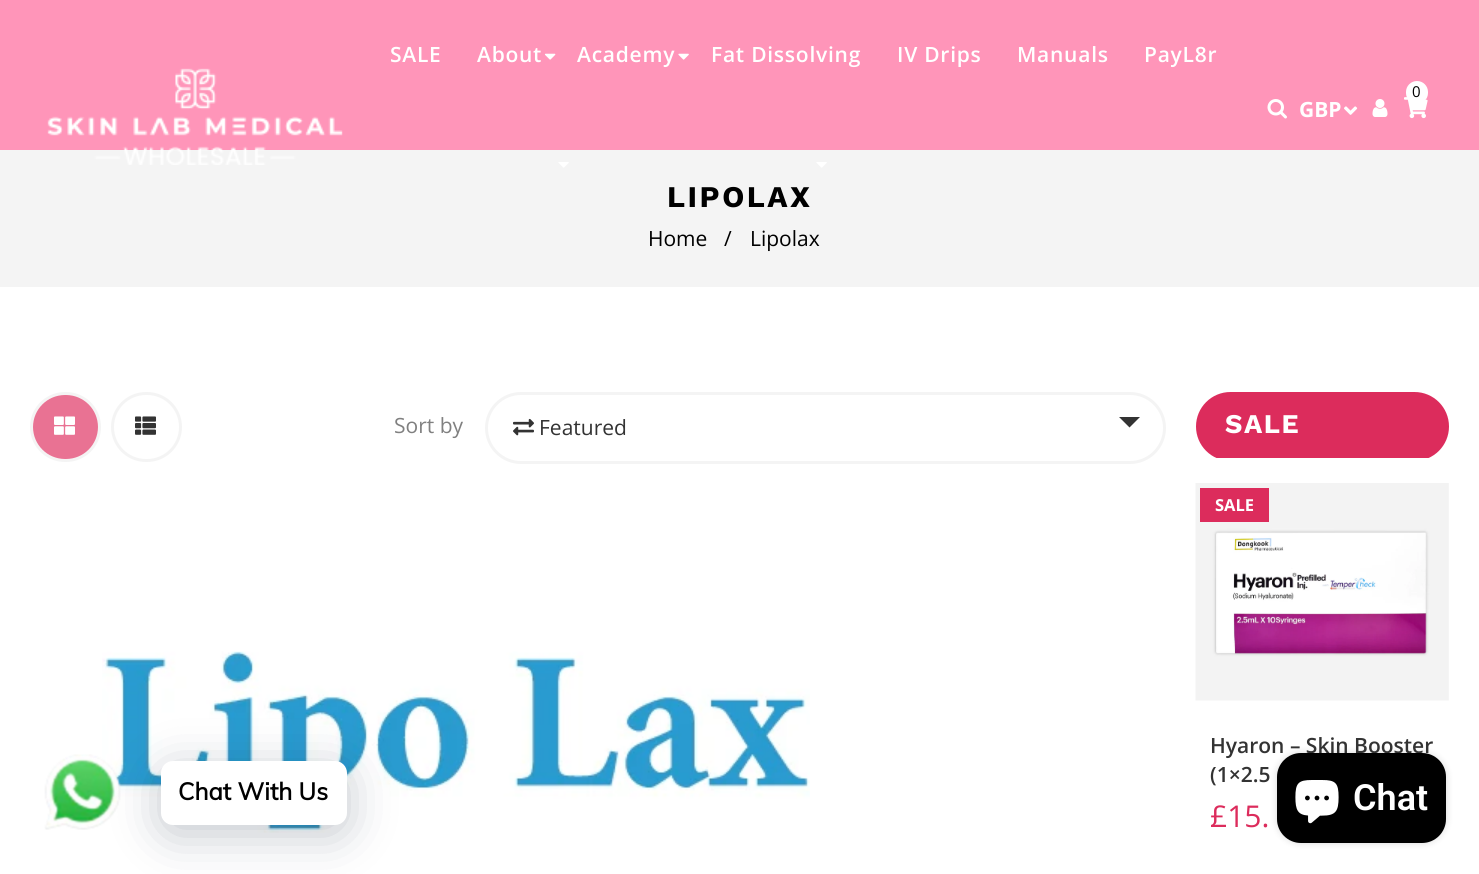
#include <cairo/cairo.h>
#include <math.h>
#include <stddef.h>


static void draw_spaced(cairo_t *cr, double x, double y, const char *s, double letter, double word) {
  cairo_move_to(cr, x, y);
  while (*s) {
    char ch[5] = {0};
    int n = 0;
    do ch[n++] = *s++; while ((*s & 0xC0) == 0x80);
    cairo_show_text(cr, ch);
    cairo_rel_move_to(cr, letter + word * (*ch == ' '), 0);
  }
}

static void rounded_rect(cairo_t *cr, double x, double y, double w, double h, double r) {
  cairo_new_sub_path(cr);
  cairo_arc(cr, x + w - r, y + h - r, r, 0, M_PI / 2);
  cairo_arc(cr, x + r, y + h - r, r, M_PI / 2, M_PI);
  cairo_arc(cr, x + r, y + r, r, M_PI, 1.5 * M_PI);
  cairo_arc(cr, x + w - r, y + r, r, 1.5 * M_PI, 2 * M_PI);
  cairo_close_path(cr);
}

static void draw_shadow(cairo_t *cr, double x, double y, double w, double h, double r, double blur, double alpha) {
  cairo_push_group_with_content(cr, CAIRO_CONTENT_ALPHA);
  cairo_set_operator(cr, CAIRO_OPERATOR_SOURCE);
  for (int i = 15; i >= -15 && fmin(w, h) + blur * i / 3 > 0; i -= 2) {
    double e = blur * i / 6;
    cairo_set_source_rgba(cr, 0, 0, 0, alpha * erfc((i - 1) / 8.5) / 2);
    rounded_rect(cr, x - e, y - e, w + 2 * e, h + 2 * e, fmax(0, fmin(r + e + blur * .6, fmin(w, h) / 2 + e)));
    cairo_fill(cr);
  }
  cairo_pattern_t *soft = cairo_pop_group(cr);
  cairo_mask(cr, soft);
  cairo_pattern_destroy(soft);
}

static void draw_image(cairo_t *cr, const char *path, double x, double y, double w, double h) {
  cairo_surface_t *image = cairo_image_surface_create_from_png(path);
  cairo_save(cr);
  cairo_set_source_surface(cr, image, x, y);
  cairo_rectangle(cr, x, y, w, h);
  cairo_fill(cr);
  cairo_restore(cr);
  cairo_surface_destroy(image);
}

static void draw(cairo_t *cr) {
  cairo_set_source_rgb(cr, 1, 1, 1);
  cairo_paint(cr);
  cairo_set_source_rgb(cr, 1, 149 / 255.0, 185 / 255.0);
  cairo_rectangle(cr, 0, 0, 1479, 150);
  cairo_fill(cr);
  draw_image(cr, "images/1.png", 544, 53, 12, 7);
  draw_image(cr, "images/2.png", 678, 53, 11, 7);
  cairo_set_source_rgb(cr, 244 / 255.0, 244 / 255.0, 244 / 255.0);
  cairo_rectangle(cr, 0, 150, 1479, 137);
  cairo_fill(cr);
  draw_image(cr, "images/3.png", 558, 162, 11, 6);
  draw_image(cr, "images/3.png", 816, 162, 11, 6);
  draw_image(cr, "images/4.png", 47, 68, 296, 97);
  draw_image(cr, "images/5.png", 1404, 97, 24, 22);
  cairo_set_source_rgb(cr, 1, 1, 1);
  rounded_rect(cr, 1406, 81, 22, 23, 11);
  cairo_fill(cr);
  draw_image(cr, "images/6.png", 1267, 99, 20, 20);
  draw_image(cr, "images/7.png", 1344, 106, 14, 9);
  draw_image(cr, "images/8.png", 1372, 99, 16, 18);
  draw_image(cr, "images/13.png", 102, 651, 708, 182);
  draw_image(cr, "images/9.png", 44, 754, 77, 76);
  cairo_set_source_rgb(cr, 0, 18 / 255.0, 46 / 255.0);
  draw_shadow(cr, 161, 770, 186, 64, 12, 24, 0.24);
  cairo_set_source_rgb(cr, 1, 1, 1);
  rounded_rect(cr, 161, 761, 186, 64, 12);
  cairo_fill(cr);
  rounded_rect(cr, 31.5, 393.5, 68, 67, 33.5);
  cairo_set_source_rgb(cr, 244 / 255.0, 244 / 255.0, 244 / 255.0);
  cairo_set_line_width(cr, 3);
  cairo_stroke(cr);
  cairo_set_source_rgb(cr, 233 / 255.0, 114 / 255.0, 147 / 255.0);
  rounded_rect(cr, 33, 395, 65, 64, 32);
  cairo_fill(cr);
  draw_image(cr, "images/10.png", 54, 416, 21, 19);
  rounded_rect(cr, 112.5, 393.5, 68, 67, 33.5);
  cairo_set_source_rgb(cr, 244 / 255.0, 244 / 255.0, 244 / 255.0);
  cairo_stroke(cr);
  draw_image(cr, "images/11.png", 135, 416, 21, 19);
  rounded_rect(cr, 486.5, 393.5, 678, 69, 34.5);
  cairo_stroke(cr);
  draw_image(cr, "images/12.png", 513, 418, 21, 18);
  cairo_set_source_rgb(cr, 51 / 255.0, 51 / 255.0, 51 / 255.0);
  cairo_new_path(cr);
  cairo_move_to(cr, 1119, 417);
  cairo_line_to(cr, 1140, 417);
  cairo_line_to(cr, 1129.5, 427.5);
  cairo_close_path(cr);
  cairo_fill(cr);
  cairo_set_source_rgb(cr, 220 / 255.0, 44 / 255.0, 92 / 255.0);
  rounded_rect(cr, 1196, 392, 253, 69, 34.5);
  cairo_fill(cr);
  cairo_set_source_rgb(cr, 1, 1, 1);
  cairo_rectangle(cr, 1214, 458, 219, 3);
  cairo_fill(cr);
  draw_image(cr, "images/14.png", 1195, 483, 254, 218);
  cairo_set_source_rgb(cr, 220 / 255.0, 44 / 255.0, 92 / 255.0);
  cairo_rectangle(cr, 1200, 488, 69, 34);
  cairo_fill(cr);
  cairo_set_source_rgb(cr, 0, 0, 0);
  draw_shadow(cr, 1277, 753, 169, 90, 24, 4, 0.15);
  cairo_select_font_face(cr, "Open Sans SemiBold", CAIRO_FONT_SLANT_NORMAL, CAIRO_FONT_WEIGHT_NORMAL);
  cairo_set_font_size(cr, 21);
  cairo_set_source_rgb(cr, 1, 1, 1);
  draw_spaced(cr, 390, 62, "SALE", 0.75, 0);
  draw_spaced(cr, 477, 62, "About", 0.75, 0);
  draw_spaced(cr, 577, 62, "Academy", 0.75, 0);
  draw_spaced(cr, 711, 62, "Fat Dissolving", 0.75, 0);
  draw_spaced(cr, 897, 62, "IV Drips", 0.75, 0);
  draw_spaced(cr, 1017, 62, "Manuals", 0.75, 0);
  draw_spaced(cr, 1144, 62, "PayL8r", 0.75, 0);
  cairo_select_font_face(cr, "Open Sans", CAIRO_FONT_SLANT_NORMAL, CAIRO_FONT_WEIGHT_NORMAL);
  cairo_set_font_size(cr, 15);
  cairo_set_source_rgb(cr, 0, 0, 0);
  cairo_move_to(cr, 1412, 97);
  cairo_show_text(cr, "0");
  cairo_select_font_face(cr, "Open Sans", CAIRO_FONT_SLANT_NORMAL, CAIRO_FONT_WEIGHT_BOLD);
  cairo_set_font_size(cr, 21);
  cairo_set_source_rgb(cr, 1, 1, 1);
  cairo_move_to(cr, 1299, 117);
  cairo_show_text(cr, "GBP");
  cairo_select_font_face(cr, "Muli", CAIRO_FONT_SLANT_NORMAL, CAIRO_FONT_WEIGHT_BOLD);
  cairo_set_font_size(cr, 24);
  cairo_set_source_rgb(cr, 0, 0, 0);
  cairo_move_to(cr, 178, 800);
  cairo_show_text(cr, "Chat With Us");
  cairo_select_font_face(cr, "Work Sans", CAIRO_FONT_SLANT_NORMAL, CAIRO_FONT_WEIGHT_BOLD);
  cairo_set_font_size(cr, 30);
  draw_spaced(cr, 667, 207, "LIPOLAX", 2.5, 0);
  cairo_select_font_face(cr, "Open Sans", CAIRO_FONT_SLANT_NORMAL, CAIRO_FONT_WEIGHT_NORMAL);
  cairo_set_font_size(cr, 21);
  cairo_move_to(cr, 648, 246);
  cairo_show_text(cr, "Home");
  cairo_move_to(cr, 724, 246);
  cairo_show_text(cr, "/");
  cairo_move_to(cr, 750, 246);
  cairo_show_text(cr, "Lipolax");
  cairo_set_source_rgb(cr, 128 / 255.0, 128 / 255.0, 128 / 255.0);
  cairo_move_to(cr, 394, 433);
  cairo_show_text(cr, "Sort by");
  cairo_set_source_rgb(cr, 51 / 255.0, 51 / 255.0, 51 / 255.0);
  cairo_move_to(cr, 539, 435);
  cairo_show_text(cr, "Featured");
  cairo_select_font_face(cr, "Work Sans", CAIRO_FONT_SLANT_NORMAL, CAIRO_FONT_WEIGHT_BOLD);
  cairo_set_font_size(cr, 27);
  cairo_set_source_rgb(cr, 1, 1, 1);
  draw_spaced(cr, 1225, 433, "SALE", 1.5, 0);
  cairo_select_font_face(cr, "Open Sans", CAIRO_FONT_SLANT_NORMAL, CAIRO_FONT_WEIGHT_BOLD);
  cairo_set_font_size(cr, 16.5);
  cairo_move_to(cr, 1215, 511);
  cairo_show_text(cr, "SALE");
  cairo_select_font_face(cr, "Open Sans SemiBold", CAIRO_FONT_SLANT_NORMAL, CAIRO_FONT_WEIGHT_NORMAL);
  cairo_set_font_size(cr, 21);
  cairo_set_source_rgb(cr, 51 / 255.0, 51 / 255.0, 51 / 255.0);
  cairo_move_to(cr, 1210, 753);
  cairo_show_text(cr, "Hyaron – Skin Booster");
  cairo_move_to(cr, 1210, 782);
  cairo_show_text(cr, "(1×2.5");
  cairo_select_font_face(cr, "Open Sans", CAIRO_FONT_SLANT_NORMAL, CAIRO_FONT_WEIGHT_NORMAL);
  cairo_set_font_size(cr, 30);
  cairo_set_source_rgb(cr, 220 / 255.0, 44 / 255.0, 92 / 255.0);
  cairo_move_to(cr, 1210, 827);
  cairo_show_text(cr, "£15.");
  cairo_set_source_rgb(cr, 0, 0, 0);
  rounded_rect(cr, 1277, 753, 169, 90, 24);
  cairo_fill(cr);
  draw_image(cr, "images/15.png", 1295, 780, 44, 44);
  cairo_select_font_face(cr, "Roboto SemiBold", CAIRO_FONT_SLANT_NORMAL, CAIRO_FONT_WEIGHT_NORMAL);
  cairo_set_font_size(cr, 36);
  cairo_set_source_rgb(cr, 1, 1, 1);
  cairo_move_to(cr, 1353, 810);
  cairo_show_text(cr, "Chat");
}

int main(void) {
  cairo_surface_t *surface = cairo_image_surface_create(CAIRO_FORMAT_RGB24, 1479, 874);
  cairo_t *cr = cairo_create(surface);
  cairo_font_options_t *options = cairo_font_options_create();
  cairo_font_options_set_hint_metrics(options, CAIRO_HINT_METRICS_OFF);
  cairo_font_options_set_hint_style(options, CAIRO_HINT_STYLE_NONE);
  cairo_set_font_options(cr, options);
  cairo_set_miter_limit(cr, 4);
  draw(cr);
  cairo_surface_write_to_png(surface, "out.png");
  cairo_font_options_destroy(options);
  cairo_destroy(cr);
  cairo_surface_destroy(surface);
  return 0;
}
